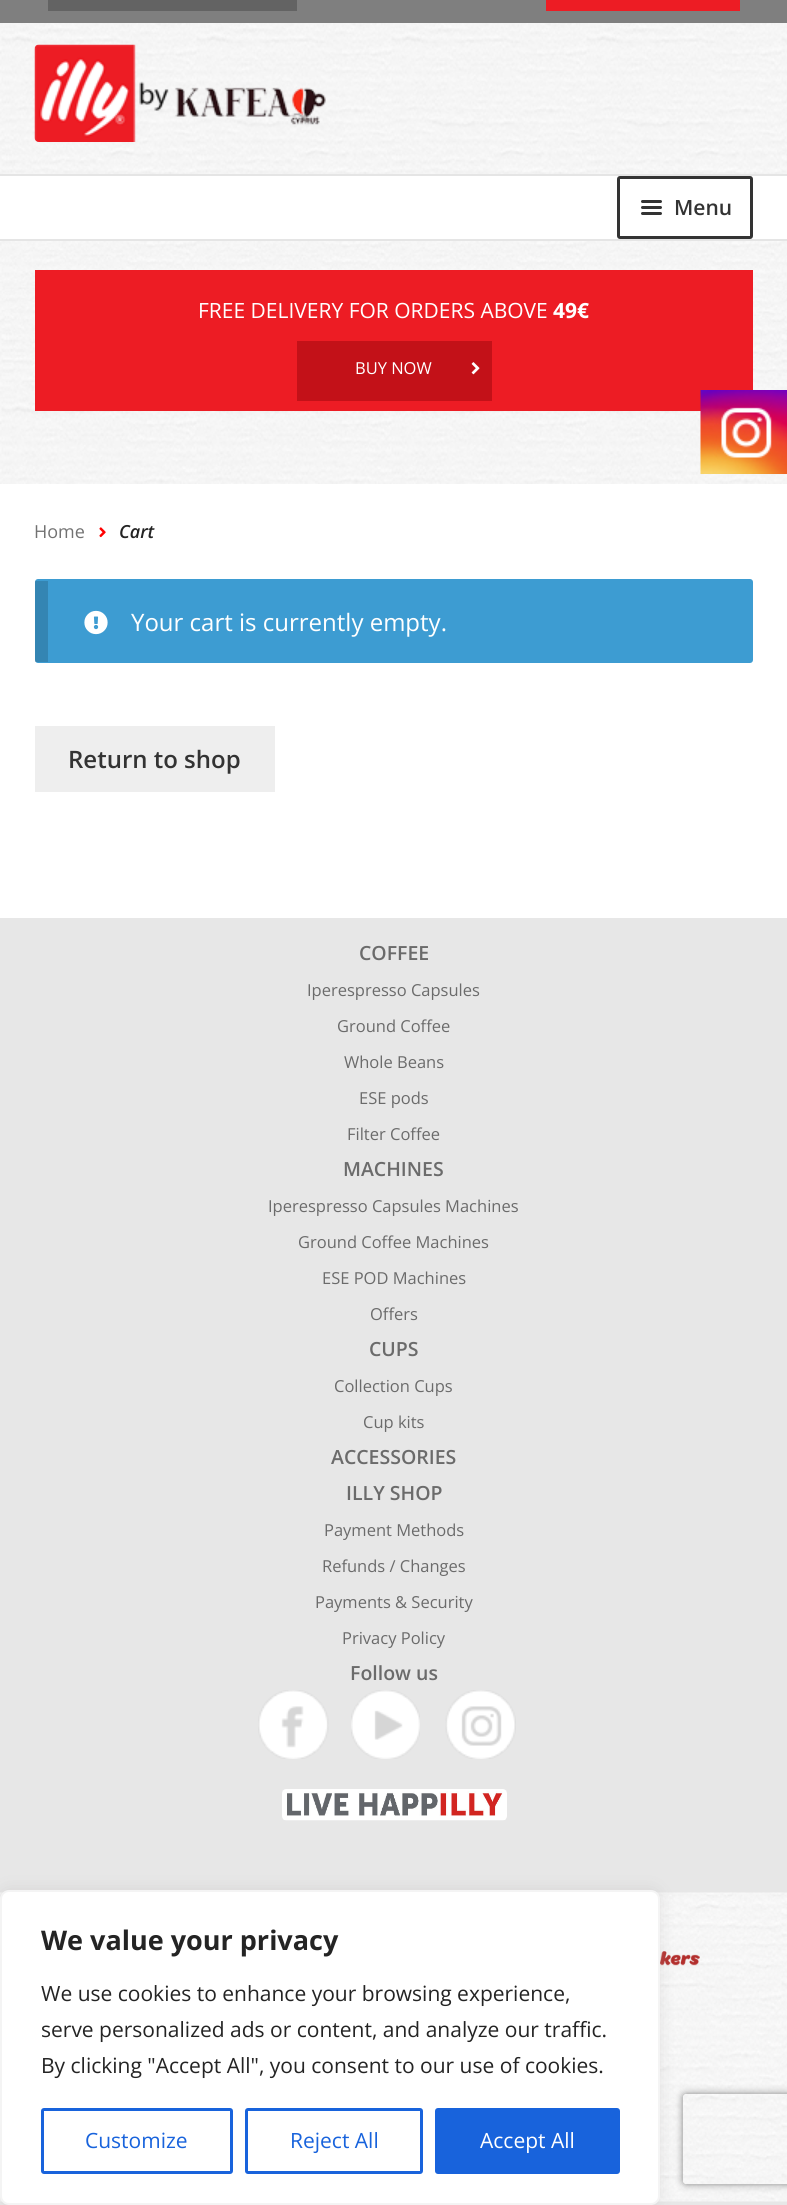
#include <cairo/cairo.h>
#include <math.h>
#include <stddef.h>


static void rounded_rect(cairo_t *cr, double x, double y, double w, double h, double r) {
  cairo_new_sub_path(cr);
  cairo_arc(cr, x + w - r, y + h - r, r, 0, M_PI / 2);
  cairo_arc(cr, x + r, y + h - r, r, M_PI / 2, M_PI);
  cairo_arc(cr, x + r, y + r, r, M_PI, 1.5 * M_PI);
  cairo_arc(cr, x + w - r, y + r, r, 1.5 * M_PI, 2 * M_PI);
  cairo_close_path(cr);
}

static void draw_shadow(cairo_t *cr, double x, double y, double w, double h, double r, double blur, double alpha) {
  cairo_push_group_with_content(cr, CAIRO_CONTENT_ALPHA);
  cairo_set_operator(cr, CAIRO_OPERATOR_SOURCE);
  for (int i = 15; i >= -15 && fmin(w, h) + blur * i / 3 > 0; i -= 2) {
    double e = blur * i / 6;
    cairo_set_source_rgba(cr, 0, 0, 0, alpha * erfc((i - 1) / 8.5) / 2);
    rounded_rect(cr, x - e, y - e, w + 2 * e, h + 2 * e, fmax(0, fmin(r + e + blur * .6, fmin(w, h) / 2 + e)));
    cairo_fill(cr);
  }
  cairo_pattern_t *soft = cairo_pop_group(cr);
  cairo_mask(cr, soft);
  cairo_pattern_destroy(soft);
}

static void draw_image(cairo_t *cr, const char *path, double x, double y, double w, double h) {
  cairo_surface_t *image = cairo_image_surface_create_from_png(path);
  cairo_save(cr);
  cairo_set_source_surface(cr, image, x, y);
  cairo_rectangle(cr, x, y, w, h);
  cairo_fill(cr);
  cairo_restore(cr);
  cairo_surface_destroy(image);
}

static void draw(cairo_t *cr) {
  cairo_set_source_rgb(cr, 1, 1, 1);
  cairo_paint(cr);
  draw_image(cr, "images/1.png", 0, 23, 787, 461);
  cairo_set_source_rgb(cr, 127 / 255.0, 127 / 255.0, 127 / 255.0);
  cairo_rectangle(cr, 0, 0, 787, 23);
  cairo_fill(cr);
  cairo_set_source_rgb(cr, 99 / 255.0, 99 / 255.0, 99 / 255.0);
  cairo_rectangle(cr, 48, 0, 249, 11);
  cairo_fill(cr);
  cairo_set_source_rgb(cr, 237 / 255.0, 28 / 255.0, 36 / 255.0);
  cairo_rectangle(cr, 546, 0, 194, 11);
  cairo_fill(cr);
  draw_image(cr, "images/2.png", 34, 44, 292, 98);
  cairo_set_source_rgb(cr, 1, 1, 1);
  cairo_rectangle(cr, 0, 176, 787, 63);
  cairo_fill(cr);
  cairo_set_source_rgb(cr, 229 / 255.0, 229 / 255.0, 229 / 255.0);
  cairo_rectangle(cr, 0, 174, 787, 2);
  cairo_fill(cr);
  cairo_rectangle(cr, 0, 239, 787, 2);
  cairo_fill(cr);
  rounded_rect(cr, 618.5, 177.5, 133, 60, 1.5);
  cairo_set_source_rgb(cr, 51 / 255.0, 51 / 255.0, 51 / 255.0);
  cairo_set_line_width(cr, 3);
  cairo_stroke(cr);
  rounded_rect(cr, 641, 200, 21, 3, 1.5);
  cairo_fill(cr);
  rounded_rect(cr, 641, 206, 21, 3, 1.5);
  cairo_fill(cr);
  rounded_rect(cr, 641, 212, 21, 3, 1.5);
  cairo_fill(cr);
  cairo_set_source_rgb(cr, 237 / 255.0, 28 / 255.0, 36 / 255.0);
  cairo_rectangle(cr, 35, 270, 718, 141);
  cairo_fill(cr);
  cairo_set_source_rgb(cr, 195 / 255.0, 17 / 255.0, 24 / 255.0);
  cairo_rectangle(cr, 297, 341, 195, 60);
  cairo_fill(cr);
  draw_image(cr, "images/3.png", 471, 362, 9, 13);
  draw_image(cr, "images/4.png", 99, 527, 7, 11);
  cairo_set_source_rgb(cr, 61 / 255.0, 156 / 255.0, 210 / 255.0);
  rounded_rect(cr, 35, 579, 718, 84, 3);
  cairo_fill(cr);
  cairo_set_source_rgba(cr, 0, 0, 0, 0.15);
  cairo_rectangle(cr, 35, 581, 13, 81);
  cairo_fill(cr);
  draw_image(cr, "images/5.png", 84, 610, 24, 25);
  cairo_set_source_rgb(cr, 238 / 255.0, 238 / 255.0, 238 / 255.0);
  cairo_rectangle(cr, 35, 726, 240, 66);
  cairo_fill(cr);
  cairo_set_source_rgb(cr, 231 / 255.0, 231 / 255.0, 231 / 255.0);
  cairo_rectangle(cr, 0, 918, 787, 1287);
  cairo_fill(cr);
  draw_image(cr, "images/6.png", 700, 390, 87, 84);
  draw_image(cr, "images/7.png", 258, 1690, 71, 69);
  draw_image(cr, "images/8.png", 351, 1690, 69, 69);
  draw_image(cr, "images/9.png", 445, 1690, 71, 69);
  draw_image(cr, "images/10.png", 282, 1789, 225, 32);
  draw_image(cr, "images/11.png", 0, 1892, 787, 310);
  draw_image(cr, "images/12.png", 660, 1951, 40, 15);
  cairo_set_source_rgb(cr, 172 / 255.0, 171 / 255.0, 171 / 255.0);
  draw_shadow(cr, 0, 1889, 660, 315, 9, 7.5, 0.3);
  cairo_set_source_rgb(cr, 1, 1, 1);
  rounded_rect(cr, 1, 1891, 658, 313, 8);
  cairo_fill_preserve(cr);
  cairo_set_source_rgb(cr, 244 / 255.0, 244 / 255.0, 244 / 255.0);
  cairo_set_line_width(cr, 2);
  cairo_stroke(cr);
  rounded_rect(cr, 42.5, 2109.5, 189, 63, 1.5);
  cairo_set_source_rgb(cr, 24 / 255.0, 99 / 255.0, 220 / 255.0);
  cairo_set_line_width(cr, 3);
  cairo_stroke(cr);
  rounded_rect(cr, 246.5, 2109.5, 175, 63, 1.5);
  cairo_stroke(cr);
  rounded_rect(cr, 436.5, 2109.5, 182, 63, 1.5);
  cairo_fill_preserve(cr);
  cairo_stroke(cr);
  cairo_save(cr);
  cairo_set_fill_rule(cr, CAIRO_FILL_RULE_EVEN_ODD);
  cairo_new_path(cr);
  cairo_move_to(cr, 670, 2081);
  cairo_line_to(cr, 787, 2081);
  cairo_line_to(cr, 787, 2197);
  cairo_line_to(cr, 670, 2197);
  cairo_close_path(cr);
  cairo_move_to(cr, 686, 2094);
  cairo_line_to(cr, 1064, 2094);
  cairo_curve_to(cr, 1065.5, 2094, 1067, 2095.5, 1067, 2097);
  cairo_line_to(cr, 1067, 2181);
  cairo_curve_to(cr, 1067, 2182.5, 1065.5, 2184, 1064, 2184);
  cairo_line_to(cr, 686, 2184);
  cairo_curve_to(cr, 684.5, 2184, 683, 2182.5, 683, 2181);
  cairo_line_to(cr, 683, 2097);
  cairo_curve_to(cr, 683, 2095.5, 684.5, 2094, 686, 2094);
  cairo_close_path(cr);
  cairo_clip(cr);
  cairo_set_source_rgb(cr, 128 / 255.0, 128 / 255.0, 128 / 255.0);
  draw_shadow(cr, 683, 2094, 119, 90, 3, 4, 1);
  cairo_restore(cr);
  cairo_select_font_face(cr, "Open Sans SemiBold", CAIRO_FONT_SLANT_NORMAL, CAIRO_FONT_WEIGHT_NORMAL);
  cairo_set_font_size(cr, 21);
  cairo_set_source_rgb(cr, 51 / 255.0, 51 / 255.0, 51 / 255.0);
  cairo_move_to(cr, 674, 215);
  cairo_show_text(cr, "Menu");
  cairo_select_font_face(cr, "Open Sans", CAIRO_FONT_SLANT_NORMAL, CAIRO_FONT_WEIGHT_NORMAL);
  cairo_set_source_rgb(cr, 1, 1, 1);
  cairo_move_to(cr, 198, 318);
  cairo_show_text(cr, "FREE DELIVERY FOR ORDERS ABOVE");
  cairo_select_font_face(cr, "Open Sans", CAIRO_FONT_SLANT_NORMAL, CAIRO_FONT_WEIGHT_BOLD);
  cairo_move_to(cr, 553, 318);
  cairo_show_text(cr, "49€");
  cairo_select_font_face(cr, "Open Sans", CAIRO_FONT_SLANT_NORMAL, CAIRO_FONT_WEIGHT_NORMAL);
  cairo_set_font_size(cr, 16.5);
  cairo_move_to(cr, 355, 374);
  cairo_show_text(cr, "BUY NOW");
  cairo_set_font_size(cr, 18);
  cairo_set_source_rgb(cr, 114 / 255.0, 114 / 255.0, 114 / 255.0);
  cairo_move_to(cr, 34, 538);
  cairo_show_text(cr, "Home");
  cairo_select_font_face(cr, "Open Sans SemiBold", CAIRO_FONT_SLANT_ITALIC, CAIRO_FONT_WEIGHT_NORMAL);
  cairo_set_source_rgb(cr, 36 / 255.0, 36 / 255.0, 36 / 255.0);
  cairo_move_to(cr, 119, 538);
  cairo_show_text(cr, "Cart");
  cairo_select_font_face(cr, "Open Sans", CAIRO_FONT_SLANT_NORMAL, CAIRO_FONT_WEIGHT_NORMAL);
  cairo_set_font_size(cr, 24);
  cairo_set_source_rgb(cr, 1, 1, 1);
  cairo_move_to(cr, 131, 631);
  cairo_show_text(cr, "Your cart is currently empty.");
  cairo_select_font_face(cr, "Open Sans SemiBold", CAIRO_FONT_SLANT_NORMAL, CAIRO_FONT_WEIGHT_NORMAL);
  cairo_set_source_rgb(cr, 51 / 255.0, 51 / 255.0, 51 / 255.0);
  cairo_move_to(cr, 68, 768);
  cairo_show_text(cr, "Return to shop");
  cairo_set_font_size(cr, 19.5);
  cairo_set_source_rgb(cr, 107 / 255.0, 107 / 255.0, 107 / 255.0);
  cairo_move_to(cr, 359, 960);
  cairo_show_text(cr, "COFFEE");
  cairo_select_font_face(cr, "Open Sans", CAIRO_FONT_SLANT_NORMAL, CAIRO_FONT_WEIGHT_NORMAL);
  cairo_set_font_size(cr, 16.5);
  cairo_move_to(cr, 307, 996);
  cairo_show_text(cr, "Iperespresso Capsules");
  cairo_move_to(cr, 337, 1032);
  cairo_show_text(cr, "Ground Coffee");
  cairo_move_to(cr, 344, 1068);
  cairo_show_text(cr, "Whole Beans");
  cairo_move_to(cr, 359, 1104);
  cairo_show_text(cr, "ESE pods");
  cairo_move_to(cr, 347, 1140);
  cairo_show_text(cr, "Filter Coffee");
  cairo_select_font_face(cr, "Open Sans SemiBold", CAIRO_FONT_SLANT_NORMAL, CAIRO_FONT_WEIGHT_NORMAL);
  cairo_set_font_size(cr, 19.5);
  cairo_move_to(cr, 343, 1176);
  cairo_show_text(cr, "MACHINES");
  cairo_select_font_face(cr, "Open Sans", CAIRO_FONT_SLANT_NORMAL, CAIRO_FONT_WEIGHT_NORMAL);
  cairo_set_font_size(cr, 16.5);
  cairo_move_to(cr, 268, 1212);
  cairo_show_text(cr, "Iperespresso Capsules Machines");
  cairo_move_to(cr, 298, 1248);
  cairo_show_text(cr, "Ground Coffee Machines");
  cairo_move_to(cr, 322, 1284);
  cairo_show_text(cr, "ESE POD Machines");
  cairo_move_to(cr, 370, 1320);
  cairo_show_text(cr, "Offers");
  cairo_select_font_face(cr, "Open Sans SemiBold", CAIRO_FONT_SLANT_NORMAL, CAIRO_FONT_WEIGHT_NORMAL);
  cairo_set_font_size(cr, 19.5);
  cairo_move_to(cr, 369, 1356);
  cairo_show_text(cr, "CUPS");
  cairo_select_font_face(cr, "Open Sans", CAIRO_FONT_SLANT_NORMAL, CAIRO_FONT_WEIGHT_NORMAL);
  cairo_set_font_size(cr, 16.5);
  cairo_move_to(cr, 334, 1392);
  cairo_show_text(cr, "Collection Cups");
  cairo_move_to(cr, 363, 1428);
  cairo_show_text(cr, "Cup kits");
  cairo_select_font_face(cr, "Open Sans SemiBold", CAIRO_FONT_SLANT_NORMAL, CAIRO_FONT_WEIGHT_NORMAL);
  cairo_set_font_size(cr, 19.5);
  cairo_move_to(cr, 331, 1464);
  cairo_show_text(cr, "ACCESSORIES");
  cairo_move_to(cr, 346, 1500);
  cairo_show_text(cr, "ILLY SHOP");
  cairo_select_font_face(cr, "Open Sans", CAIRO_FONT_SLANT_NORMAL, CAIRO_FONT_WEIGHT_NORMAL);
  cairo_set_font_size(cr, 16.5);
  cairo_move_to(cr, 324, 1536);
  cairo_show_text(cr, "Payment Methods");
  cairo_move_to(cr, 322, 1572);
  cairo_show_text(cr, "Refunds / Changes");
  cairo_move_to(cr, 315, 1608);
  cairo_show_text(cr, "Payments & Security");
  cairo_move_to(cr, 342, 1644);
  cairo_show_text(cr, "Privacy Policy");
  cairo_select_font_face(cr, "Open Sans SemiBold", CAIRO_FONT_SLANT_NORMAL, CAIRO_FONT_WEIGHT_NORMAL);
  cairo_set_font_size(cr, 19.5);
  cairo_move_to(cr, 350, 1680);
  cairo_show_text(cr, "Follow us");
  cairo_select_font_face(cr, "Open Sans", CAIRO_FONT_SLANT_NORMAL, CAIRO_FONT_WEIGHT_BOLD);
  cairo_set_font_size(cr, 27);
  cairo_set_source_rgb(cr, 36 / 255.0, 36 / 255.0, 36 / 255.0);
  cairo_move_to(cr, 41, 1950);
  cairo_show_text(cr, "We value your privacy");
  cairo_select_font_face(cr, "Open Sans", CAIRO_FONT_SLANT_NORMAL, CAIRO_FONT_WEIGHT_NORMAL);
  cairo_set_font_size(cr, 21);
  cairo_move_to(cr, 41, 2001);
  cairo_show_text(cr, "We use cookies to enhance your browsing experience,");
  cairo_move_to(cr, 41, 2037);
  cairo_show_text(cr, "serve personalized ads or content, and analyze our traffic.");
  cairo_move_to(cr, 41, 2073);
  cairo_show_text(cr, "By clicking \"Accept All\", you consent to our use of cookies.");
  cairo_set_source_rgb(cr, 24 / 255.0, 99 / 255.0, 220 / 255.0);
  cairo_move_to(cr, 85, 2148);
  cairo_show_text(cr, "Customize");
  cairo_move_to(cr, 290, 2148);
  cairo_show_text(cr, "Reject All");
  cairo_set_source_rgb(cr, 1, 1, 1);
  cairo_move_to(cr, 480, 2148);
  cairo_show_text(cr, "Accept All");
}

int main(void) {
  cairo_surface_t *surface = cairo_image_surface_create(CAIRO_FORMAT_RGB24, 787, 2205);
  cairo_t *cr = cairo_create(surface);
  cairo_font_options_t *options = cairo_font_options_create();
  cairo_font_options_set_hint_metrics(options, CAIRO_HINT_METRICS_OFF);
  cairo_font_options_set_hint_style(options, CAIRO_HINT_STYLE_NONE);
  cairo_set_font_options(cr, options);
  cairo_set_miter_limit(cr, 4);
  draw(cr);
  cairo_surface_write_to_png(surface, "out.png");
  cairo_font_options_destroy(options);
  cairo_destroy(cr);
  cairo_surface_destroy(surface);
  return 0;
}
